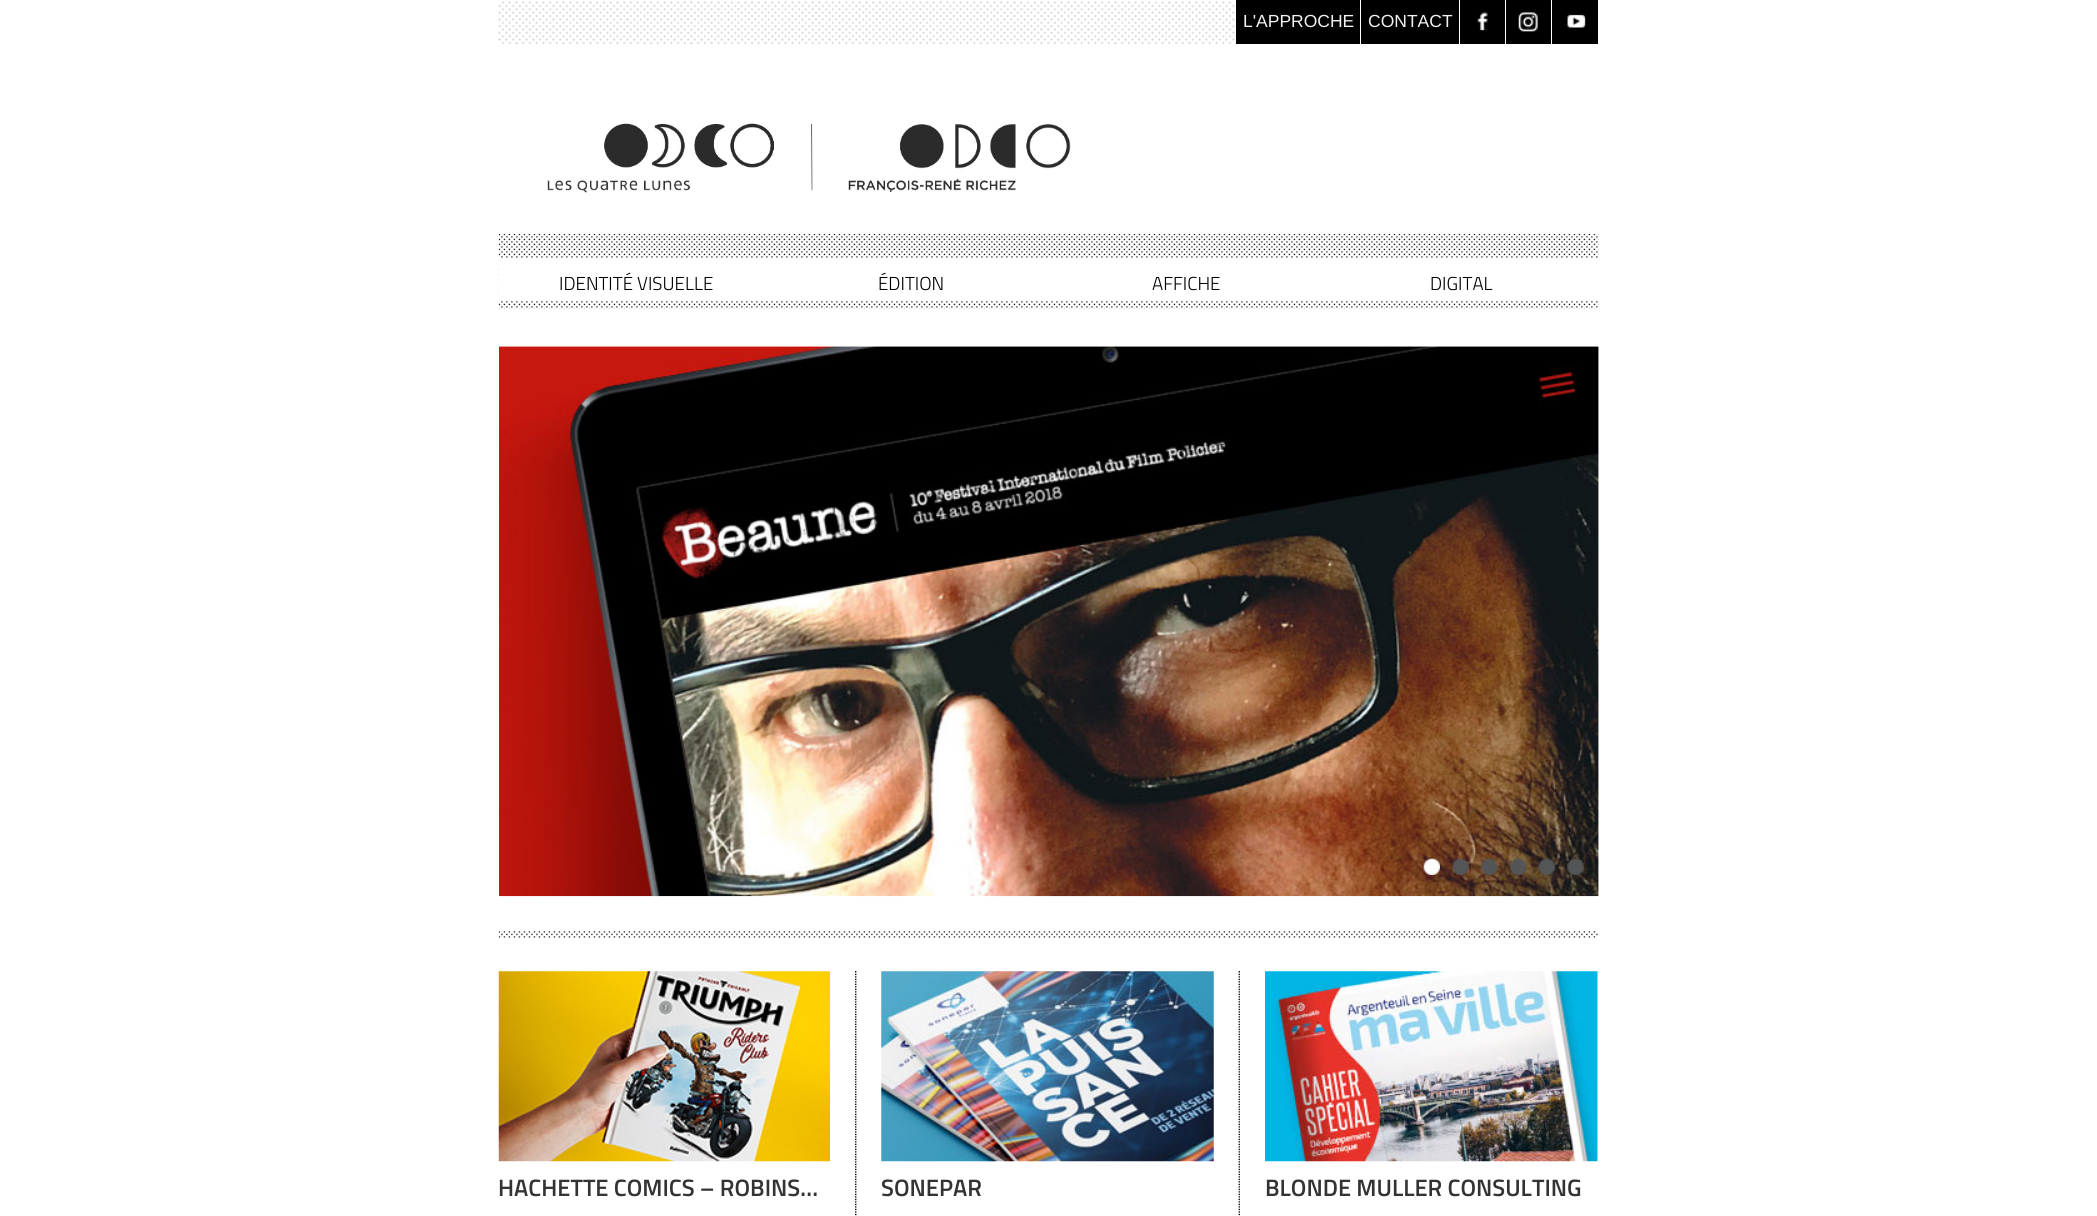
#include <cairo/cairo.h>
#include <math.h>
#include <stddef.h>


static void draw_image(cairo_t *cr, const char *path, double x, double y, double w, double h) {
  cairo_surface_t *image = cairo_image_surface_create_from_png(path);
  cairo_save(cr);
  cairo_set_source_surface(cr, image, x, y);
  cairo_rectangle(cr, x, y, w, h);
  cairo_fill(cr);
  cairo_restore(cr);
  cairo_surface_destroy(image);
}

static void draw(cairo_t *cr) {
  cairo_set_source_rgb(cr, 1, 1, 1);
  cairo_paint(cr);
  draw_image(cr, "images/1.png", 498, 1, 738, 43);
  cairo_set_source_rgb(cr, 0, 0, 0);
  cairo_rectangle(cr, 1236, 0, 124, 44);
  cairo_fill(cr);
  cairo_rectangle(cr, 1361, 0, 98, 44);
  cairo_fill(cr);
  cairo_rectangle(cr, 1460, 0, 45, 44);
  cairo_fill(cr);
  draw_image(cr, "images/2.png", 1477, 12, 11, 19);
  cairo_rectangle(cr, 1506, 0, 92, 44);
  cairo_fill(cr);
  cairo_set_source_rgb(cr, 1, 1, 1);
  cairo_rectangle(cr, 1551, 0, 1, 44);
  cairo_fill(cr);
  draw_image(cr, "images/3.png", 1518, 12, 20, 20);
  draw_image(cr, "images/4.png", 1567, 14, 19, 14);
  draw_image(cr, "images/5.png", 547, 123, 524, 70);
  draw_image(cr, "images/6.png", 498, 233, 1101, 76);
  cairo_rectangle(cr, 499, 258, 1100, 43);
  cairo_fill(cr);
  draw_image(cr, "images/7.png", 499, 346, 1100, 551);
  draw_image(cr, "images/8.png", 1423, 858, 17, 17);
  draw_image(cr, "images/9.png", 1452, 858, 17, 17);
  draw_image(cr, "images/10.png", 1481, 858, 17, 17);
  draw_image(cr, "images/11.png", 1510, 858, 17, 17);
  draw_image(cr, "images/12.png", 1538, 858, 17, 17);
  draw_image(cr, "images/13.png", 1567, 858, 17, 17);
  draw_image(cr, "images/14.png", 498, 931, 1100, 7);
  draw_image(cr, "images/15.png", 855, 971, 2, 245);
  draw_image(cr, "images/16.png", 498, 971, 332, 191);
  draw_image(cr, "images/17.png", 855, 971, 385, 245);
  draw_image(cr, "images/18.png", 881, 971, 333, 191);
  draw_image(cr, "images/19.png", 1238, 971, 2, 245);
  draw_image(cr, "images/20.png", 1265, 971, 333, 191);
  cairo_select_font_face(cr, "Liberation Sans", CAIRO_FONT_SLANT_NORMAL, CAIRO_FONT_WEIGHT_NORMAL);
  cairo_set_font_size(cr, 17.5);
  cairo_set_source_rgb(cr, 242 / 255.0, 242 / 255.0, 242 / 255.0);
  cairo_move_to(cr, 1243, 27);
  cairo_show_text(cr, "L'APPROCHE");
  cairo_move_to(cr, 1368, 27);
  cairo_show_text(cr, "CONTACT");
  cairo_select_font_face(cr, "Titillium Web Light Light", CAIRO_FONT_SLANT_NORMAL, CAIRO_FONT_WEIGHT_NORMAL);
  cairo_set_font_size(cr, 18.75);
  cairo_set_source_rgb(cr, 0, 0, 0);
  cairo_move_to(cr, 559, 290);
  cairo_show_text(cr, "IDENTITÉ VISUELLE");
  cairo_move_to(cr, 878, 290);
  cairo_show_text(cr, "ÉDITION");
  cairo_move_to(cr, 1152, 290);
  cairo_show_text(cr, "AFFICHE");
  cairo_move_to(cr, 1430, 290);
  cairo_show_text(cr, "DIGITAL");
  cairo_select_font_face(cr, "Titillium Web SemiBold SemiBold", CAIRO_FONT_SLANT_NORMAL, CAIRO_FONT_WEIGHT_NORMAL);
  cairo_set_font_size(cr, 23.75);
  cairo_set_source_rgb(cr, 51 / 255.0, 51 / 255.0, 51 / 255.0);
  cairo_move_to(cr, 498, 1196);
  cairo_show_text(cr, "HACHETTE COMICS – ROBINS…");
  cairo_move_to(cr, 881, 1196);
  cairo_show_text(cr, "SONEPAR");
  cairo_move_to(cr, 1265, 1196);
  cairo_show_text(cr, "BLONDE MULLER CONSULTING");
}

int main(void) {
  cairo_surface_t *surface = cairo_image_surface_create(CAIRO_FORMAT_RGB24, 2097, 1216);
  cairo_t *cr = cairo_create(surface);
  cairo_font_options_t *options = cairo_font_options_create();
  cairo_font_options_set_hint_metrics(options, CAIRO_HINT_METRICS_OFF);
  cairo_font_options_set_hint_style(options, CAIRO_HINT_STYLE_NONE);
  cairo_set_font_options(cr, options);
  cairo_set_miter_limit(cr, 4);
  draw(cr);
  cairo_surface_write_to_png(surface, "out.png");
  cairo_font_options_destroy(options);
  cairo_destroy(cr);
  cairo_surface_destroy(surface);
  return 0;
}
